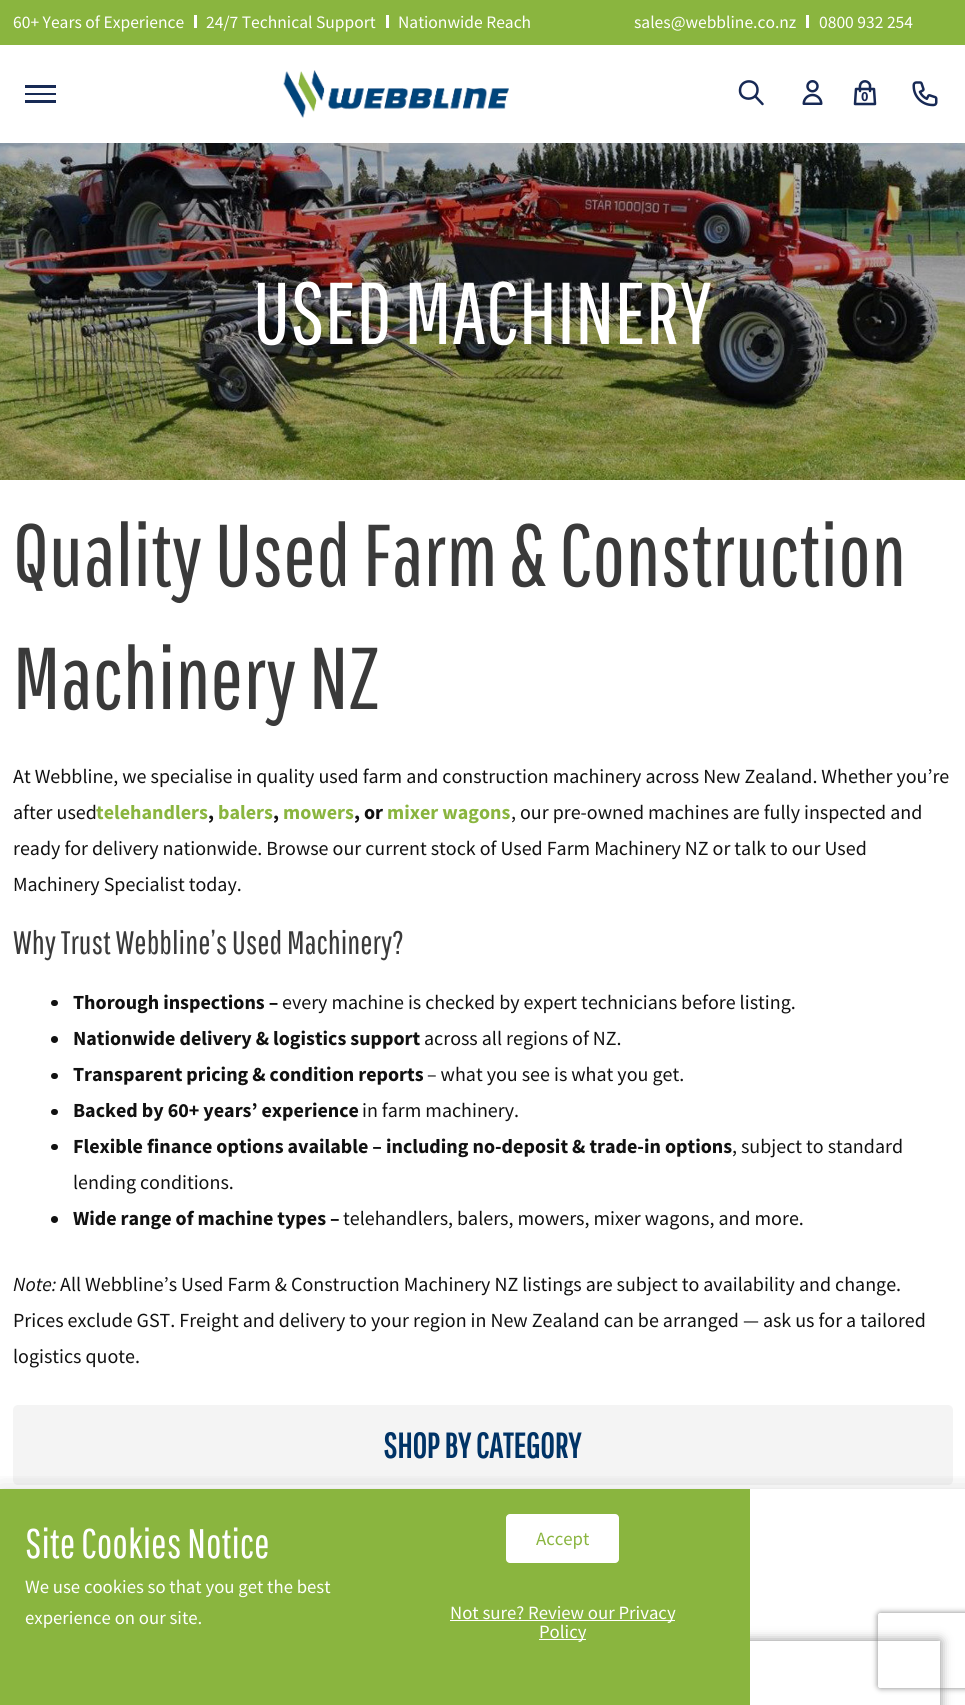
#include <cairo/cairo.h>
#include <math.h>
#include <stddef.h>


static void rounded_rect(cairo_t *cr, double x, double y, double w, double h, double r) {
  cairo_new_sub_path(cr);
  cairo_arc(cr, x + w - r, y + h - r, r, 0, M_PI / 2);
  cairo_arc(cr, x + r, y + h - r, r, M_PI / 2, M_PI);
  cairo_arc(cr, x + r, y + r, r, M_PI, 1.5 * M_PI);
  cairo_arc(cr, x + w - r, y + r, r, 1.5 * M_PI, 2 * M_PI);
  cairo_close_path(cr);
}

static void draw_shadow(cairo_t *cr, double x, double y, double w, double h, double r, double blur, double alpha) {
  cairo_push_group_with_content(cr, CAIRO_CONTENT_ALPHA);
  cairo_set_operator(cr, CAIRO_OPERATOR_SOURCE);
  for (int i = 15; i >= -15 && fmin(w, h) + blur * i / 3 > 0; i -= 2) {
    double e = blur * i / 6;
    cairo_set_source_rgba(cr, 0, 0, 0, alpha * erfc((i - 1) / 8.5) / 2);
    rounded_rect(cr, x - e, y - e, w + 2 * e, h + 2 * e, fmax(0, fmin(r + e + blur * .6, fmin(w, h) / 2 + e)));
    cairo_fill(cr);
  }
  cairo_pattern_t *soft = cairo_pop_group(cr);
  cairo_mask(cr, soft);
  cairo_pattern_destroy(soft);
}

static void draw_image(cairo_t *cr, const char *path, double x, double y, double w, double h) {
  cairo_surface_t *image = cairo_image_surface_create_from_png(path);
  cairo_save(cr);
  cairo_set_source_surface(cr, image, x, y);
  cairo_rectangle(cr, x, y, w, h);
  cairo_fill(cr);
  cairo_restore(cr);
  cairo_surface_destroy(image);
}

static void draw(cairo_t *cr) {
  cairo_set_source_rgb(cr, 1, 1, 1);
  cairo_paint(cr);
  cairo_set_source_rgb(cr, 138 / 255.0, 181 / 255.0, 63 / 255.0);
  cairo_rectangle(cr, 0, 0, 965, 45);
  cairo_fill(cr);
  cairo_set_source_rgb(cr, 1, 1, 1);
  cairo_rectangle(cr, 194, 15, 3, 13);
  cairo_fill(cr);
  cairo_rectangle(cr, 386, 15, 3, 13);
  cairo_fill(cr);
  cairo_rectangle(cr, 806, 15, 3, 13);
  cairo_fill(cr);
  cairo_set_source_rgb(cr, 23 / 255.0, 42 / 255.0, 85 / 255.0);
  cairo_rectangle(cr, 25, 85, 31, 3);
  cairo_fill(cr);
  cairo_rectangle(cr, 25, 93, 31, 2);
  cairo_fill(cr);
  cairo_rectangle(cr, 25, 100, 31, 3);
  cairo_fill(cr);
  draw_image(cr, "images/1.png", 283, 70, 226, 48);
  cairo_new_path(cr);
  cairo_move_to(cr, 762.5, 104);
  cairo_line_to(cr, 755, 96);
  cairo_move_to(cr, 757.5, 90);
  cairo_curve_to(cr, 757.5, 101.5, 739.5, 101.5, 740, 90);
  cairo_curve_to(cr, 740.5, 78.5, 757.5, 78.5, 757.5, 90);
  cairo_close_path(cr);
  cairo_set_source_rgb(cr, 23 / 255.0, 41 / 255.0, 85 / 255.0);
  cairo_set_line_width(cr, 2.5);
  cairo_set_line_cap(cr, CAIRO_LINE_CAP_ROUND);
  cairo_set_line_join(cr, CAIRO_LINE_JOIN_ROUND);
  cairo_stroke(cr);
  draw_image(cr, "images/2.png", 802, 80, 21, 25);
  cairo_new_path(cr);
  cairo_move_to(cr, 870, 91);
  cairo_line_to(cr, 870, 85);
  cairo_curve_to(cr, 868.5, 80.5, 862.5, 80, 860.5, 84);
  cairo_curve_to(cr, 859.5, 86, 860, 89, 860, 91);
  cairo_move_to(cr, 856, 89);
  cairo_line_to(cr, 874, 89);
  cairo_line_to(cr, 875, 104);
  cairo_line_to(cr, 855, 104);
  cairo_close_path(cr);
  cairo_stroke(cr);
  draw_image(cr, "images/3.png", 912, 81, 26, 26);
  draw_image(cr, "images/4.png", 0, 143, 965, 337);
  cairo_set_source_rgb(cr, 17 / 255.0, 17 / 255.0, 17 / 255.0);
  rounded_rect(cr, 51, 1000, 7, 6, 3);
  cairo_fill(cr);
  cairo_arc(cr, 54.5, 1039.5, 3.5, 0, 2 * M_PI);
  cairo_fill(cr);
  rounded_rect(cr, 51, 1073, 7, 6, 3);
  cairo_fill(cr);
  rounded_rect(cr, 51, 1109, 7, 6, 3);
  cairo_fill(cr);
  rounded_rect(cr, 51, 1144, 7, 6, 3);
  cairo_fill(cr);
  cairo_arc(cr, 54.5, 1219.5, 3.5, 0, 2 * M_PI);
  cairo_fill(cr);
  cairo_set_source_rgb(cr, 244 / 255.0, 244 / 255.0, 244 / 255.0);
  rounded_rect(cr, 13, 1405, 940, 80, 5);
  cairo_fill(cr);
  cairo_save(cr);
  cairo_set_fill_rule(cr, CAIRO_FILL_RULE_EVEN_ODD);
  cairo_new_path(cr);
  cairo_move_to(cr, 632, 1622);
  cairo_line_to(cr, 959, 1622);
  cairo_line_to(cr, 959, 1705);
  cairo_line_to(cr, 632, 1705);
  cairo_close_path(cr);
  cairo_move_to(cr, 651, 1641);
  cairo_line_to(cr, 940, 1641);
  cairo_line_to(cr, 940, 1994);
  cairo_line_to(cr, 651, 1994);
  cairo_close_path(cr);
  cairo_clip(cr);
  cairo_set_source_rgb(cr, 0, 0, 0);
  draw_shadow(cr, 651, 1641, 289, 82, 0, 6, 0.46);
  cairo_restore(cr);
  cairo_save(cr);
  cairo_rectangle(cr, 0, 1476, 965, 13);
  cairo_clip(cr);
  cairo_set_source_rgb(cr, 0, 0, 0);
  draw_shadow(cr, -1, 1495, 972, 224, 0, 14.5, 0.2);
  cairo_restore(cr);
  cairo_set_source_rgb(cr, 138 / 255.0, 181 / 255.0, 63 / 255.0);
  cairo_rectangle(cr, 0, 1489, 750, 216);
  cairo_fill(cr);
  cairo_set_source_rgb(cr, 1, 1, 1);
  rounded_rect(cr, 506, 1514, 113, 49, 4);
  cairo_fill(cr);
  cairo_rectangle(cr, 450, 1620, 225, 1);
  cairo_fill(cr);
  cairo_rectangle(cr, 539, 1639, 47, 1);
  cairo_fill(cr);
  cairo_save(cr);
  cairo_set_fill_rule(cr, CAIRO_FILL_RULE_EVEN_ODD);
  cairo_new_path(cr);
  cairo_move_to(cr, 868, 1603);
  cairo_line_to(cr, 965, 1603);
  cairo_line_to(cr, 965, 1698);
  cairo_line_to(cr, 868, 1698);
  cairo_close_path(cr);
  cairo_move_to(cr, 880.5, 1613);
  cairo_line_to(cr, 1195.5, 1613);
  cairo_curve_to(cr, 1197, 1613, 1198, 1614, 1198, 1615.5);
  cairo_line_to(cr, 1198, 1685.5);
  cairo_curve_to(cr, 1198, 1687, 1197, 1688, 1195.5, 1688);
  cairo_line_to(cr, 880.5, 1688);
  cairo_curve_to(cr, 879, 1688, 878, 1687, 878, 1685.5);
  cairo_line_to(cr, 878, 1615.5);
  cairo_curve_to(cr, 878, 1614, 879, 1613, 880.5, 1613);
  cairo_close_path(cr);
  cairo_clip(cr);
  cairo_set_source_rgb(cr, 128 / 255.0, 128 / 255.0, 128 / 255.0);
  draw_shadow(cr, 878, 1613, 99, 75, 2.5, 3, 1);
  cairo_restore(cr);
  cairo_select_font_face(cr, "Source Sans Pro", CAIRO_FONT_SLANT_NORMAL, CAIRO_FONT_WEIGHT_NORMAL);
  cairo_set_font_size(cr, 17.5);
  cairo_move_to(cr, 13, 28);
  cairo_show_text(cr, "60+ Years of Experience");
  cairo_move_to(cr, 206, 28);
  cairo_show_text(cr, "24/7 Technical Support");
  cairo_move_to(cr, 398, 28);
  cairo_show_text(cr, "Nationwide Reach");
  cairo_move_to(cr, 634, 28);
  cairo_show_text(cr, "sales@webbline.co.nz");
  cairo_move_to(cr, 819, 28);
  cairo_show_text(cr, "0800 932 254");
  cairo_select_font_face(cr, "Source Sans Pro", CAIRO_FONT_SLANT_NORMAL, CAIRO_FONT_WEIGHT_BOLD);
  cairo_set_font_size(cr, 14);
  cairo_set_source_rgb(cr, 25 / 255.0, 41 / 255.0, 87 / 255.0);
  cairo_move_to(cr, 861, 101);
  cairo_show_text(cr, "0");
  cairo_select_font_face(cr, "Pathway Gothic One", CAIRO_FONT_SLANT_NORMAL, CAIRO_FONT_WEIGHT_NORMAL);
  cairo_set_font_size(cr, 87.5);
  cairo_set_source_rgb(cr, 1, 1, 1);
  cairo_move_to(cr, 253, 344);
  cairo_show_text(cr, "USED MACHINERY");
  cairo_set_source_rgb(cr, 58 / 255.0, 58 / 255.0, 58 / 255.0);
  cairo_move_to(cr, 13, 586);
  cairo_show_text(cr, "Quality Used Farm & Construction");
  cairo_move_to(cr, 13, 709);
  cairo_show_text(cr, "Machinery NZ");
  cairo_select_font_face(cr, "Source Sans Pro", CAIRO_FONT_SLANT_NORMAL, CAIRO_FONT_WEIGHT_NORMAL);
  cairo_set_font_size(cr, 20);
  cairo_set_source_rgb(cr, 17 / 255.0, 17 / 255.0, 17 / 255.0);
  cairo_move_to(cr, 13, 783);
  cairo_show_text(cr, "At Webbline, we specialise in quality used farm and construction machinery across New Zealand. Whether you’re");
  cairo_move_to(cr, 13, 819);
  cairo_show_text(cr, "after used");
  cairo_select_font_face(cr, "Source Sans Pro", CAIRO_FONT_SLANT_NORMAL, CAIRO_FONT_WEIGHT_BOLD);
  cairo_set_source_rgb(cr, 138 / 255.0, 181 / 255.0, 63 / 255.0);
  cairo_move_to(cr, 96, 819);
  cairo_show_text(cr, "telehandlers");
  cairo_set_source_rgb(cr, 17 / 255.0, 17 / 255.0, 17 / 255.0);
  cairo_move_to(cr, 208, 819);
  cairo_show_text(cr, ",");
  cairo_set_source_rgb(cr, 138 / 255.0, 181 / 255.0, 63 / 255.0);
  cairo_move_to(cr, 218, 819);
  cairo_show_text(cr, "balers");
  cairo_set_source_rgb(cr, 17 / 255.0, 17 / 255.0, 17 / 255.0);
  cairo_move_to(cr, 273, 819);
  cairo_show_text(cr, ",");
  cairo_set_source_rgb(cr, 138 / 255.0, 181 / 255.0, 63 / 255.0);
  cairo_move_to(cr, 283, 819);
  cairo_show_text(cr, "mowers");
  cairo_set_source_rgb(cr, 17 / 255.0, 17 / 255.0, 17 / 255.0);
  cairo_move_to(cr, 354, 819);
  cairo_show_text(cr, ", or");
  cairo_set_source_rgb(cr, 138 / 255.0, 181 / 255.0, 63 / 255.0);
  cairo_move_to(cr, 387, 819);
  cairo_show_text(cr, "mixer wagons");
  cairo_select_font_face(cr, "Source Sans Pro", CAIRO_FONT_SLANT_NORMAL, CAIRO_FONT_WEIGHT_NORMAL);
  cairo_set_source_rgb(cr, 17 / 255.0, 17 / 255.0, 17 / 255.0);
  cairo_move_to(cr, 511, 819);
  cairo_show_text(cr, ", our pre-owned machines are fully inspected and");
  cairo_move_to(cr, 13, 855);
  cairo_show_text(cr, "ready for delivery nationwide. Browse our current stock of Used Farm Machinery NZ or talk to our Used");
  cairo_move_to(cr, 13, 891);
  cairo_show_text(cr, "Machinery Specialist today.");
  cairo_select_font_face(cr, "Pathway Gothic One", CAIRO_FONT_SLANT_NORMAL, CAIRO_FONT_WEIGHT_NORMAL);
  cairo_set_font_size(cr, 32.5);
  cairo_set_source_rgb(cr, 58 / 255.0, 58 / 255.0, 58 / 255.0);
  cairo_move_to(cr, 13, 954);
  cairo_show_text(cr, "Why Trust Webbline’s Used Machinery?");
  cairo_select_font_face(cr, "Source Sans Pro", CAIRO_FONT_SLANT_NORMAL, CAIRO_FONT_WEIGHT_BOLD);
  cairo_set_font_size(cr, 20);
  cairo_set_source_rgb(cr, 17 / 255.0, 17 / 255.0, 17 / 255.0);
  cairo_move_to(cr, 73, 1009);
  cairo_show_text(cr, "Thorough inspections –");
  cairo_select_font_face(cr, "Source Sans Pro", CAIRO_FONT_SLANT_NORMAL, CAIRO_FONT_WEIGHT_NORMAL);
  cairo_move_to(cr, 282, 1009);
  cairo_show_text(cr, "every machine is checked by expert technicians before listing.");
  cairo_select_font_face(cr, "Source Sans Pro", CAIRO_FONT_SLANT_NORMAL, CAIRO_FONT_WEIGHT_BOLD);
  cairo_move_to(cr, 73, 1045);
  cairo_show_text(cr, "Nationwide delivery & logistics support");
  cairo_select_font_face(cr, "Source Sans Pro", CAIRO_FONT_SLANT_NORMAL, CAIRO_FONT_WEIGHT_NORMAL);
  cairo_move_to(cr, 424, 1045);
  cairo_show_text(cr, "across all regions of NZ.");
  cairo_select_font_face(cr, "Source Sans Pro", CAIRO_FONT_SLANT_NORMAL, CAIRO_FONT_WEIGHT_BOLD);
  cairo_move_to(cr, 73, 1081);
  cairo_show_text(cr, "Transparent pricing & condition reports");
  cairo_select_font_face(cr, "Source Sans Pro", CAIRO_FONT_SLANT_NORMAL, CAIRO_FONT_WEIGHT_NORMAL);
  cairo_move_to(cr, 427, 1081);
  cairo_show_text(cr, "– what you see is what you get.");
  cairo_select_font_face(cr, "Source Sans Pro", CAIRO_FONT_SLANT_NORMAL, CAIRO_FONT_WEIGHT_BOLD);
  cairo_move_to(cr, 73, 1117);
  cairo_show_text(cr, "Backed by 60+ years’ experience");
  cairo_select_font_face(cr, "Source Sans Pro", CAIRO_FONT_SLANT_NORMAL, CAIRO_FONT_WEIGHT_NORMAL);
  cairo_move_to(cr, 362, 1117);
  cairo_show_text(cr, "in farm machinery.");
  cairo_select_font_face(cr, "Source Sans Pro", CAIRO_FONT_SLANT_NORMAL, CAIRO_FONT_WEIGHT_BOLD);
  cairo_move_to(cr, 73, 1153);
  cairo_show_text(cr, "Flexible finance options available – including no-deposit & trade-in options");
  cairo_select_font_face(cr, "Source Sans Pro", CAIRO_FONT_SLANT_NORMAL, CAIRO_FONT_WEIGHT_NORMAL);
  cairo_move_to(cr, 732, 1153);
  cairo_show_text(cr, ", subject to standard");
  cairo_move_to(cr, 73, 1189);
  cairo_show_text(cr, "lending conditions.");
  cairo_select_font_face(cr, "Source Sans Pro", CAIRO_FONT_SLANT_NORMAL, CAIRO_FONT_WEIGHT_BOLD);
  cairo_move_to(cr, 73, 1225);
  cairo_show_text(cr, "Wide range of machine types –");
  cairo_select_font_face(cr, "Source Sans Pro", CAIRO_FONT_SLANT_NORMAL, CAIRO_FONT_WEIGHT_NORMAL);
  cairo_move_to(cr, 343, 1225);
  cairo_show_text(cr, "telehandlers, balers, mowers, mixer wagons, and more.");
  cairo_select_font_face(cr, "Source Sans Pro", CAIRO_FONT_SLANT_ITALIC, CAIRO_FONT_WEIGHT_NORMAL);
  cairo_move_to(cr, 13, 1291);
  cairo_show_text(cr, "Note:");
  cairo_select_font_face(cr, "Source Sans Pro", CAIRO_FONT_SLANT_NORMAL, CAIRO_FONT_WEIGHT_NORMAL);
  cairo_move_to(cr, 60, 1291);
  cairo_show_text(cr, "All Webbline’s Used Farm & Construction Machinery NZ listings are subject to availability and change.");
  cairo_move_to(cr, 13, 1327);
  cairo_show_text(cr, "Prices exclude GST. Freight and delivery to your region in New Zealand can be arranged — ask us for a tailored");
  cairo_move_to(cr, 13, 1363);
  cairo_show_text(cr, "logistics quote.");
  cairo_select_font_face(cr, "Pathway Gothic One", CAIRO_FONT_SLANT_NORMAL, CAIRO_FONT_WEIGHT_BOLD);
  cairo_set_font_size(cr, 35);
  cairo_set_source_rgb(cr, 0, 51 / 255.0, 102 / 255.0);
  cairo_move_to(cr, 383, 1458);
  cairo_show_text(cr, "SHOP BY CATEGORY");
  cairo_select_font_face(cr, "Pathway Gothic One", CAIRO_FONT_SLANT_NORMAL, CAIRO_FONT_WEIGHT_NORMAL);
  cairo_set_font_size(cr, 41.25);
  cairo_set_source_rgb(cr, 1, 1, 1);
  cairo_move_to(cr, 25, 1558);
  cairo_show_text(cr, "Site Cookies Notice");
  cairo_select_font_face(cr, "Source Sans Pro", CAIRO_FONT_SLANT_NORMAL, CAIRO_FONT_WEIGHT_NORMAL);
  cairo_set_font_size(cr, 18.75);
  cairo_move_to(cr, 25, 1593);
  cairo_show_text(cr, "We use cookies so that you get the best");
  cairo_move_to(cr, 25, 1624);
  cairo_show_text(cr, "experience on our site.");
  cairo_set_source_rgb(cr, 138 / 255.0, 181 / 255.0, 63 / 255.0);
  cairo_move_to(cr, 536, 1545);
  cairo_show_text(cr, "Accept");
  cairo_set_source_rgb(cr, 1, 1, 1);
  cairo_move_to(cr, 450, 1619);
  cairo_show_text(cr, "Not sure? Review our Privacy");
  cairo_move_to(cr, 539, 1638);
  cairo_show_text(cr, "Policy");
}

int main(void) {
  cairo_surface_t *surface = cairo_image_surface_create(CAIRO_FORMAT_RGB24, 965, 1705);
  cairo_t *cr = cairo_create(surface);
  cairo_font_options_t *options = cairo_font_options_create();
  cairo_font_options_set_hint_metrics(options, CAIRO_HINT_METRICS_OFF);
  cairo_font_options_set_hint_style(options, CAIRO_HINT_STYLE_NONE);
  cairo_set_font_options(cr, options);
  cairo_set_miter_limit(cr, 4);
  draw(cr);
  cairo_surface_write_to_png(surface, "out.png");
  cairo_font_options_destroy(options);
  cairo_destroy(cr);
  cairo_surface_destroy(surface);
  return 0;
}
